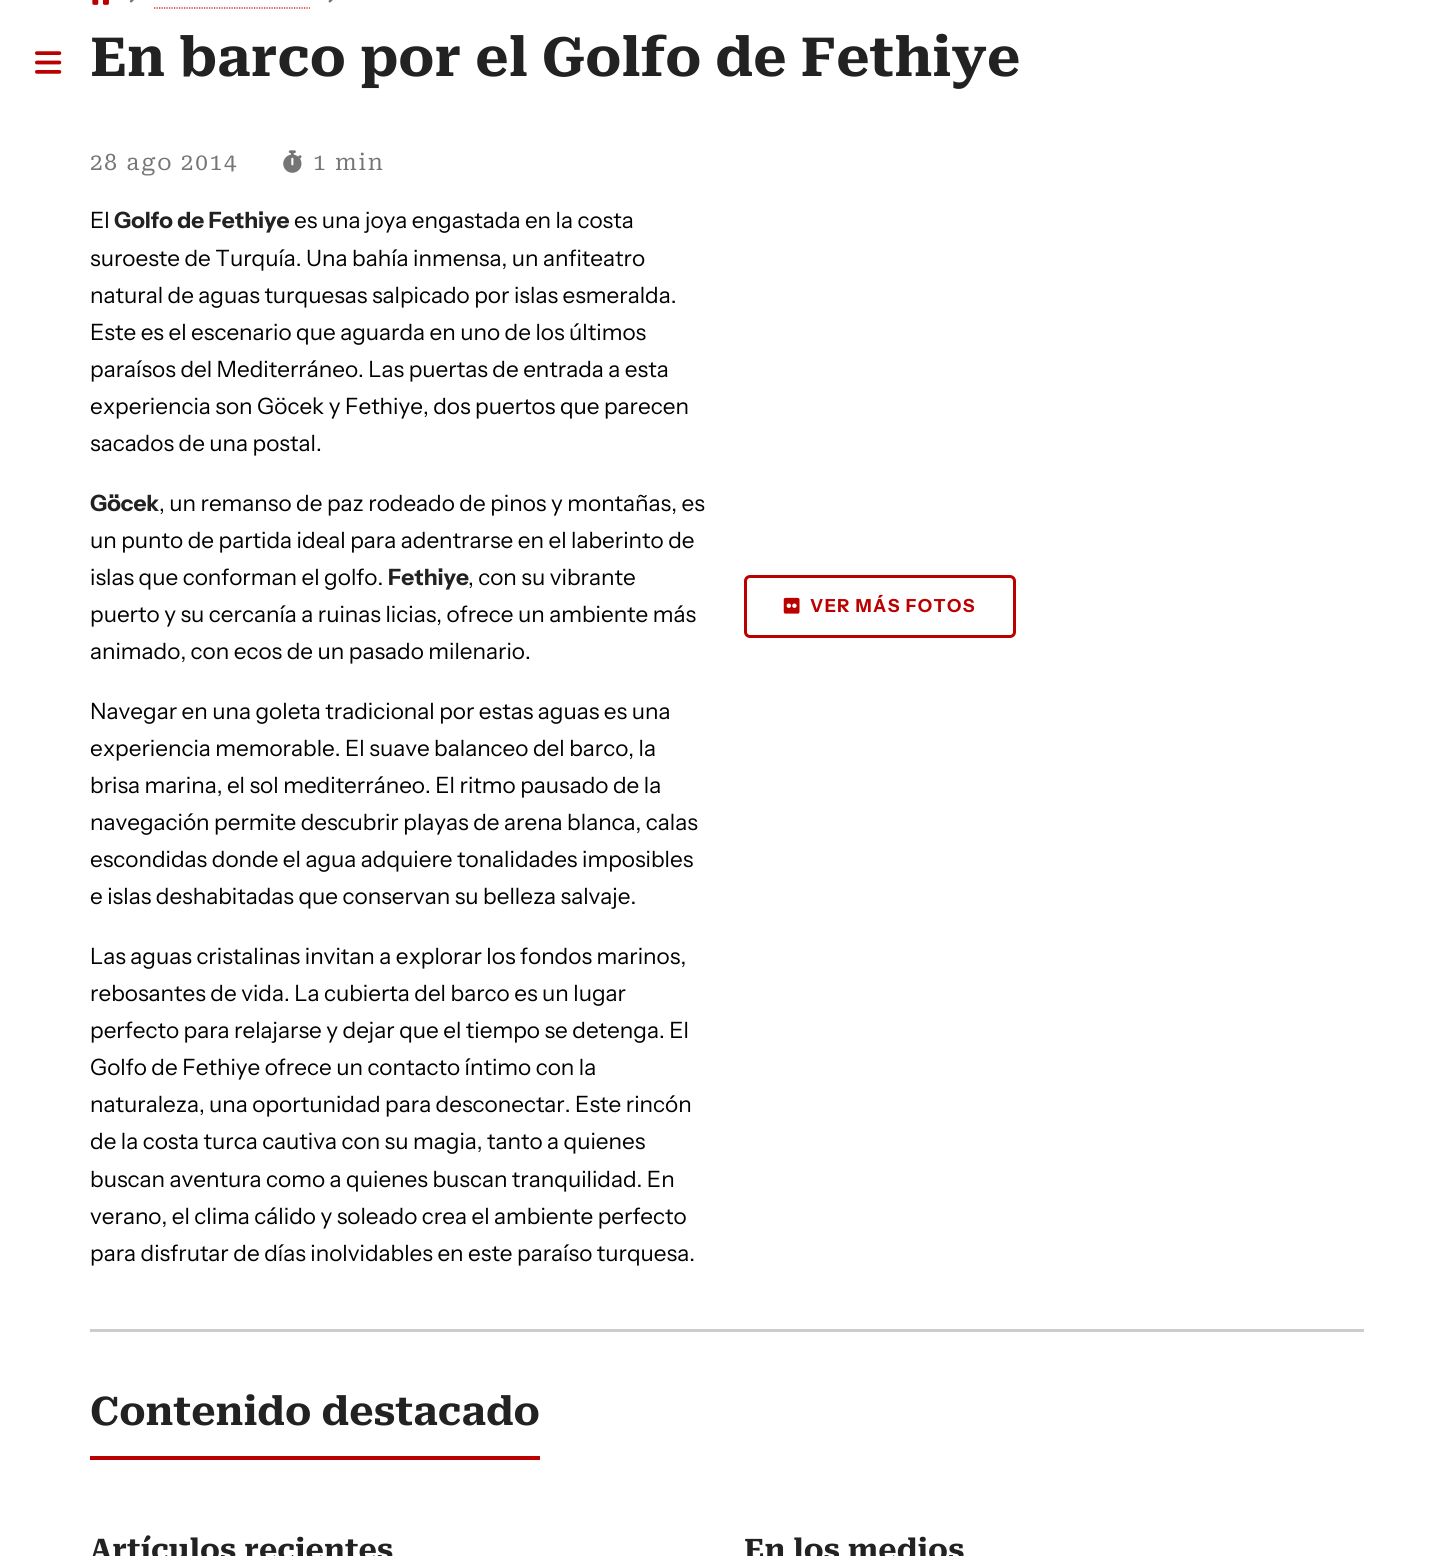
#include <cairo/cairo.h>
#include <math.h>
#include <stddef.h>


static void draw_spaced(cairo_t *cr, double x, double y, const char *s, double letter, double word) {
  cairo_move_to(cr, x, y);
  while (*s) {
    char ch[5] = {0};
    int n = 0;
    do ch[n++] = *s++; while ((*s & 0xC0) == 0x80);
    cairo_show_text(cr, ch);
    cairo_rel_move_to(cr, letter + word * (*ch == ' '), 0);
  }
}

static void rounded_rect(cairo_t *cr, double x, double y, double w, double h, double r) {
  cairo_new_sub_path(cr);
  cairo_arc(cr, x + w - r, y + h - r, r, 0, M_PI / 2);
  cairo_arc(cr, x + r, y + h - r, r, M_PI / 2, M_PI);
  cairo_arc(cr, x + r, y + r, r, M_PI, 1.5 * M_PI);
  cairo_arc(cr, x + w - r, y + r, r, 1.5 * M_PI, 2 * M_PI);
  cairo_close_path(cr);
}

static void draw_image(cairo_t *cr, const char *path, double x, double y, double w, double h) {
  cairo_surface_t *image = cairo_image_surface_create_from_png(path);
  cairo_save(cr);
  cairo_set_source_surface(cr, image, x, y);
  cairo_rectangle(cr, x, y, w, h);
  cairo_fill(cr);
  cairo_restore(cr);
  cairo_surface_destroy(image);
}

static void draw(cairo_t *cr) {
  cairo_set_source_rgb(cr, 1, 1, 1);
  cairo_paint(cr);
  draw_image(cr, "images/1.png", 35, 51, 27, 23);
  draw_image(cr, "images/2.png", 92, 0, 17, 5);
  draw_image(cr, "images/3.png", 129, 0, 5, 3);
  draw_image(cr, "images/4.png", 328, 0, 5, 3);
  cairo_new_path(cr);
  cairo_move_to(cr, 154, 8);
  cairo_line_to(cr, 310, 8);
  cairo_set_source_rgb(cr, 187 / 255.0, 0, 0);
  cairo_set_line_width(cr, 1.2);
  cairo_set_dash(cr, (double[]){1.25, 1.25}, 2, 0);
  cairo_stroke(cr);
  draw_image(cr, "images/5.png", 283, 150, 19, 23);
  rounded_rect(cr, 745.5, 576.5, 269, 60, 4.5);
  cairo_set_line_width(cr, 3);
  cairo_set_dash(cr, NULL, 0, 0);
  cairo_stroke(cr);
  draw_image(cr, "images/6.png", 783, 597, 17, 17);
  cairo_set_source_rgb(cr, 204 / 255.0, 204 / 255.0, 204 / 255.0);
  cairo_rectangle(cr, 90, 1329, 1274, 3);
  cairo_fill(cr);
  cairo_set_source_rgb(cr, 187 / 255.0, 0, 0);
  cairo_rectangle(cr, 90, 1456, 450, 4);
  cairo_fill(cr);
  cairo_select_font_face(cr, "Roboto Serif", CAIRO_FONT_SLANT_NORMAL, CAIRO_FONT_WEIGHT_BOLD);
  cairo_set_font_size(cr, 54);
  cairo_set_source_rgb(cr, 34 / 255.0, 34 / 255.0, 34 / 255.0);
  cairo_move_to(cr, 90, 76);
  cairo_show_text(cr, "En barco por el Golfo de Fethiye");
  cairo_select_font_face(cr, "Roboto Serif", CAIRO_FONT_SLANT_NORMAL, CAIRO_FONT_WEIGHT_NORMAL);
  cairo_set_font_size(cr, 22.5);
  cairo_set_source_rgb(cr, 117 / 255.0, 117 / 255.0, 117 / 255.0);
  draw_spaced(cr, 90, 170, "28 ago 2014", 1.75, 0);
  draw_spaced(cr, 313, 170, "1 min", 1.75, 0);
  cairo_select_font_face(cr, "Instrument Sans", CAIRO_FONT_SLANT_NORMAL, CAIRO_FONT_WEIGHT_NORMAL);
  cairo_set_source_rgb(cr, 0, 0, 0);
  cairo_move_to(cr, 90, 228);
  cairo_show_text(cr, "El");
  cairo_select_font_face(cr, "Instrument Sans", CAIRO_FONT_SLANT_NORMAL, CAIRO_FONT_WEIGHT_BOLD);
  cairo_set_source_rgb(cr, 34 / 255.0, 34 / 255.0, 34 / 255.0);
  cairo_move_to(cr, 114, 228);
  cairo_show_text(cr, "Golfo de Fethiye");
  cairo_select_font_face(cr, "Instrument Sans", CAIRO_FONT_SLANT_NORMAL, CAIRO_FONT_WEIGHT_NORMAL);
  cairo_set_source_rgb(cr, 0, 0, 0);
  cairo_move_to(cr, 294, 228);
  cairo_show_text(cr, "es una joya engastada en la costa");
  cairo_move_to(cr, 90, 266);
  cairo_show_text(cr, "suroeste de Turquía. Una bahía inmensa, un anfiteatro");
  cairo_move_to(cr, 90, 303);
  cairo_show_text(cr, "natural de aguas turquesas salpicado por islas esmeralda.");
  cairo_move_to(cr, 90, 340);
  cairo_show_text(cr, "Este es el escenario que aguarda en uno de los últimos");
  cairo_move_to(cr, 90, 377);
  cairo_show_text(cr, "paraísos del Mediterráneo. Las puertas de entrada a esta");
  cairo_move_to(cr, 90, 414);
  cairo_show_text(cr, "experiencia son Göcek y Fethiye, dos puertos que parecen");
  cairo_move_to(cr, 90, 451);
  cairo_show_text(cr, "sacados de una postal.");
  cairo_select_font_face(cr, "Instrument Sans", CAIRO_FONT_SLANT_NORMAL, CAIRO_FONT_WEIGHT_BOLD);
  cairo_set_source_rgb(cr, 34 / 255.0, 34 / 255.0, 34 / 255.0);
  cairo_move_to(cr, 90, 511);
  cairo_show_text(cr, "Göcek");
  cairo_select_font_face(cr, "Instrument Sans", CAIRO_FONT_SLANT_NORMAL, CAIRO_FONT_WEIGHT_NORMAL);
  cairo_set_source_rgb(cr, 0, 0, 0);
  cairo_move_to(cr, 159, 511);
  cairo_show_text(cr, ", un remanso de paz rodeado de pinos y montañas, es");
  cairo_move_to(cr, 90, 548);
  cairo_show_text(cr, "un punto de partida ideal para adentrarse en el laberinto de");
  cairo_move_to(cr, 90, 585);
  cairo_show_text(cr, "islas que conforman el golfo.");
  cairo_select_font_face(cr, "Instrument Sans", CAIRO_FONT_SLANT_NORMAL, CAIRO_FONT_WEIGHT_BOLD);
  cairo_set_source_rgb(cr, 34 / 255.0, 34 / 255.0, 34 / 255.0);
  cairo_move_to(cr, 388, 585);
  cairo_show_text(cr, "Fethiye");
  cairo_select_font_face(cr, "Instrument Sans", CAIRO_FONT_SLANT_NORMAL, CAIRO_FONT_WEIGHT_NORMAL);
  cairo_set_source_rgb(cr, 0, 0, 0);
  cairo_move_to(cr, 468, 585);
  cairo_show_text(cr, ", con su vibrante");
  cairo_move_to(cr, 90, 622);
  cairo_show_text(cr, "puerto y su cercanía a ruinas licias, ofrece un ambiente más");
  cairo_move_to(cr, 90, 659);
  cairo_show_text(cr, "animado, con ecos de un pasado milenario.");
  cairo_move_to(cr, 90, 719);
  cairo_show_text(cr, "Navegar en una goleta tradicional por estas aguas es una");
  cairo_move_to(cr, 90, 756);
  cairo_show_text(cr, "experiencia memorable. El suave balanceo del barco, la");
  cairo_move_to(cr, 90, 793);
  cairo_show_text(cr, "brisa marina, el sol mediterráneo. El ritmo pausado de la");
  cairo_move_to(cr, 90, 830);
  cairo_show_text(cr, "navegación permite descubrir playas de arena blanca, calas");
  cairo_move_to(cr, 90, 867);
  cairo_show_text(cr, "escondidas donde el agua adquiere tonalidades imposibles");
  cairo_move_to(cr, 90, 904);
  cairo_show_text(cr, "e islas deshabitadas que conservan su belleza salvaje.");
  cairo_move_to(cr, 90, 964);
  cairo_show_text(cr, "Las aguas cristalinas invitan a explorar los fondos marinos,");
  cairo_move_to(cr, 90, 1001);
  cairo_show_text(cr, "rebosantes de vida. La cubierta del barco es un lugar");
  cairo_move_to(cr, 90, 1038);
  cairo_show_text(cr, "perfecto para relajarse y dejar que el tiempo se detenga. El");
  cairo_move_to(cr, 90, 1075);
  cairo_show_text(cr, "Golfo de Fethiye ofrece un contacto íntimo con la");
  cairo_move_to(cr, 90, 1112);
  cairo_show_text(cr, "naturaleza, una oportunidad para desconectar. Este rincón");
  cairo_move_to(cr, 90, 1149);
  cairo_show_text(cr, "de la costa turca cautiva con su magia, tanto a quienes");
  cairo_move_to(cr, 90, 1187);
  cairo_show_text(cr, "buscan aventura como a quienes buscan tranquilidad. En");
  cairo_move_to(cr, 90, 1224);
  cairo_show_text(cr, "verano, el clima cálido y soleado crea el ambiente perfecto");
  cairo_move_to(cr, 90, 1261);
  cairo_show_text(cr, "para disfrutar de días inolvidables en este paraíso turquesa.");
  cairo_select_font_face(cr, "Instrument Sans", CAIRO_FONT_SLANT_NORMAL, CAIRO_FONT_WEIGHT_BOLD);
  cairo_set_font_size(cr, 18);
  cairo_set_source_rgb(cr, 187 / 255.0, 0, 0);
  draw_spaced(cr, 810, 612, "VER MÁS FOTOS", 1.4, 0);
  cairo_select_font_face(cr, "Roboto Serif", CAIRO_FONT_SLANT_NORMAL, CAIRO_FONT_WEIGHT_BOLD);
  cairo_set_font_size(cr, 39.4);
  cairo_set_source_rgb(cr, 34 / 255.0, 34 / 255.0, 34 / 255.0);
  cairo_move_to(cr, 90, 1425);
  cairo_show_text(cr, "Contenido destacado");
  cairo_set_font_size(cr, 29.75);
  cairo_move_to(cr, 90, 1560);
  cairo_show_text(cr, "Artículos recientes");
  cairo_move_to(cr, 744, 1560);
  cairo_show_text(cr, "En los medios");
}

int main(void) {
  cairo_surface_t *surface = cairo_image_surface_create(CAIRO_FORMAT_RGB24, 1453, 1556);
  cairo_t *cr = cairo_create(surface);
  cairo_font_options_t *options = cairo_font_options_create();
  cairo_font_options_set_hint_metrics(options, CAIRO_HINT_METRICS_OFF);
  cairo_font_options_set_hint_style(options, CAIRO_HINT_STYLE_NONE);
  cairo_set_font_options(cr, options);
  cairo_set_miter_limit(cr, 4);
  draw(cr);
  cairo_surface_write_to_png(surface, "out.png");
  cairo_font_options_destroy(options);
  cairo_destroy(cr);
  cairo_surface_destroy(surface);
  return 0;
}
